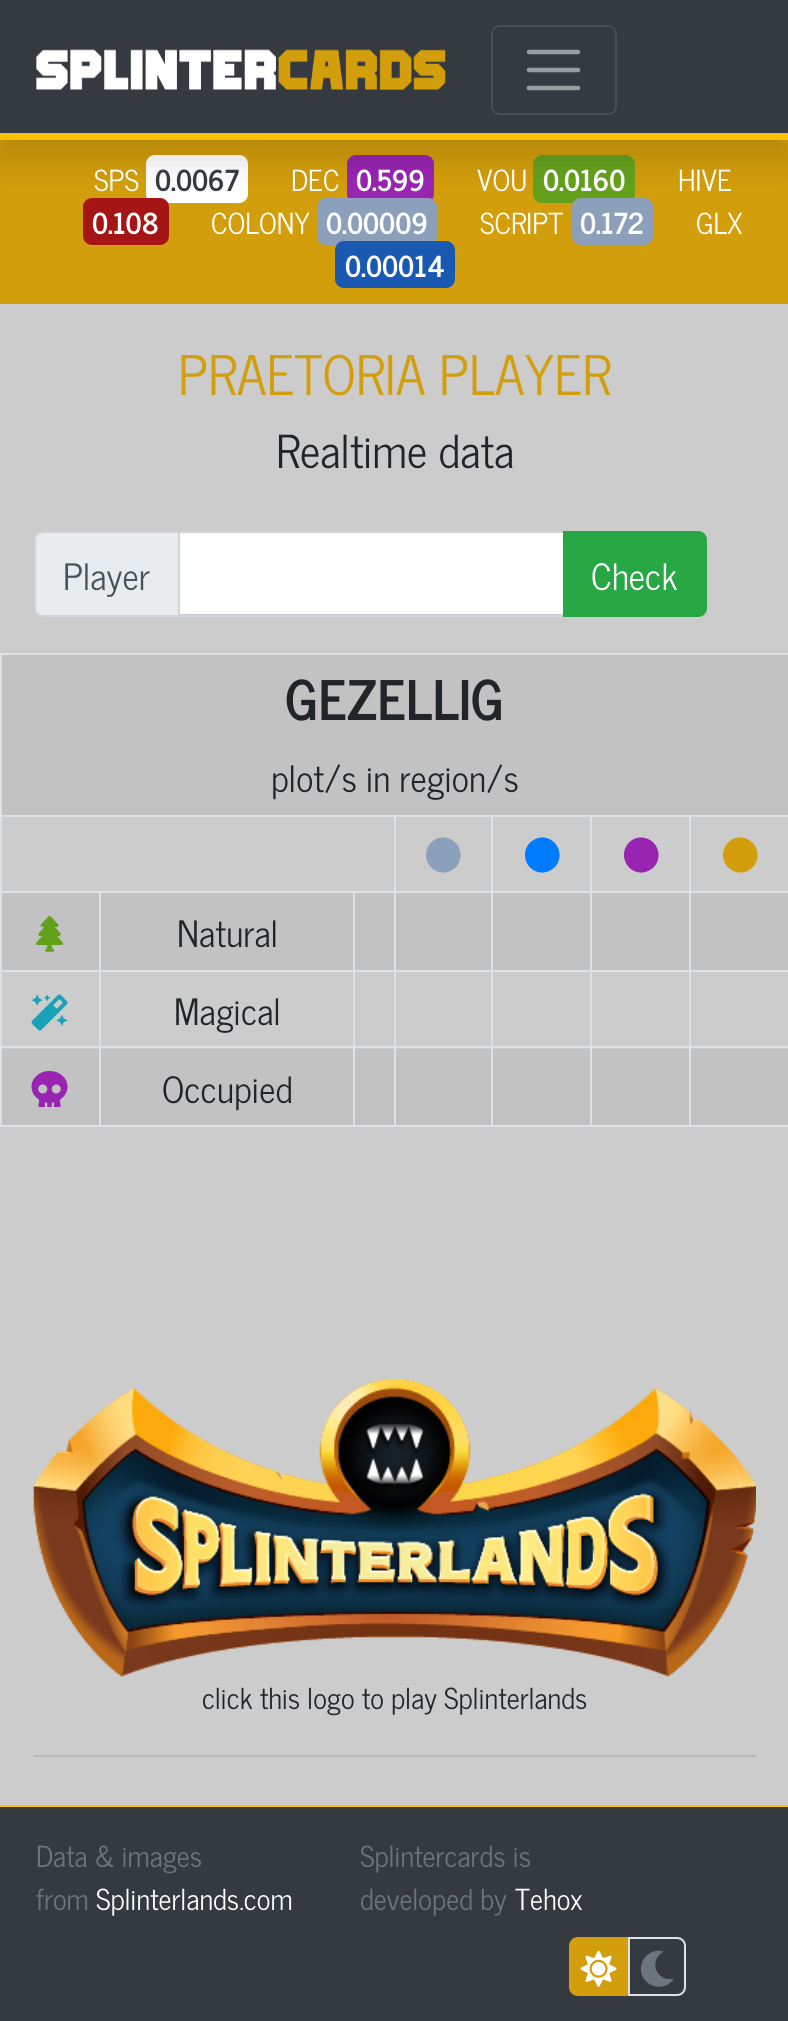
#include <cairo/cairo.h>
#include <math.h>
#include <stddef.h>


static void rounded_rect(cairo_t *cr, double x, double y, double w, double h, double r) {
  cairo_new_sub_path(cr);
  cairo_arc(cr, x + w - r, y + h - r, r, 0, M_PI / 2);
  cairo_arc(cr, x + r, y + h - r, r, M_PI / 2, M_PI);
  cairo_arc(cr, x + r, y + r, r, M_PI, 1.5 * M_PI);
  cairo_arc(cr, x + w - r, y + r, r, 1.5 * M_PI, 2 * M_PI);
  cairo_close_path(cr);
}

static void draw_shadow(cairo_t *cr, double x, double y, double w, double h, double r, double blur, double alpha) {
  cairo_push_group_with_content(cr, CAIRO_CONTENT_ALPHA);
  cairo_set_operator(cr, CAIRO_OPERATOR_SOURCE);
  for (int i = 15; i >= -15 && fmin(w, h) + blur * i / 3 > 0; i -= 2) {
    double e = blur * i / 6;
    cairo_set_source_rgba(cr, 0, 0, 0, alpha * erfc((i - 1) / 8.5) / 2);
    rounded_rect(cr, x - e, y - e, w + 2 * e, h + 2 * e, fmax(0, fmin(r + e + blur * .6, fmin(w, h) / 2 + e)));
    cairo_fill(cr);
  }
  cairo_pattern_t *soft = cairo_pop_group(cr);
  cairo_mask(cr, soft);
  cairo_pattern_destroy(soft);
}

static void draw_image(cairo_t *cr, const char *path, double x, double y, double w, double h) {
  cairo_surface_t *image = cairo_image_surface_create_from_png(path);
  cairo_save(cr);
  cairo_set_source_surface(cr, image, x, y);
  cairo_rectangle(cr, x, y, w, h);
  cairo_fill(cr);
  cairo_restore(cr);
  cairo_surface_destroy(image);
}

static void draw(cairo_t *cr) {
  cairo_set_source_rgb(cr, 204 / 255.0, 204 / 255.0, 204 / 255.0);
  cairo_paint(cr);
  cairo_set_source_rgb(cr, 211 / 255.0, 158 / 255.0, 11 / 255.0);
  cairo_rectangle(cr, 0, 140, 788, 164);
  cairo_fill(cr);
  cairo_set_source_rgb(cr, 1, 1, 1);
  rounded_rect(cr, 146, 155, 102, 48, 9);
  cairo_fill(cr);
  cairo_set_source_rgb(cr, 152 / 255.0, 36 / 255.0, 177 / 255.0);
  rounded_rect(cr, 347, 155, 87, 48, 9);
  cairo_fill(cr);
  cairo_set_source_rgb(cr, 99 / 255.0, 161 / 255.0, 28 / 255.0);
  rounded_rect(cr, 533, 155, 102, 48, 9);
  cairo_fill(cr);
  cairo_set_source_rgb(cr, 165 / 255.0, 21 / 255.0, 21 / 255.0);
  rounded_rect(cr, 83, 198, 86, 47, 9);
  cairo_fill(cr);
  cairo_set_source_rgb(cr, 140 / 255.0, 160 / 255.0, 188 / 255.0);
  rounded_rect(cr, 317, 198, 120, 47, 9);
  cairo_fill(cr);
  rounded_rect(cr, 572, 198, 81, 47, 9);
  cairo_fill(cr);
  cairo_set_source_rgb(cr, 0, 0, 0);
  draw_shadow(cr, 0, 18, 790, 140, 0, 18, 0.15);
  cairo_set_source_rgb(cr, 52 / 255.0, 58 / 255.0, 64 / 255.0);
  cairo_rectangle(cr, 0, 0, 788, 133);
  cairo_fill(cr);
  cairo_set_source_rgb(cr, 1, 193 / 255.0, 7 / 255.0);
  cairo_rectangle(cr, 0, 133, 788, 7);
  cairo_fill(cr);
  draw_image(cr, "images/1.png", 36, 49, 410, 41);
  rounded_rect(cr, 492, 26, 124, 88, 8);
  cairo_set_source_rgb(cr, 72 / 255.0, 78 / 255.0, 83 / 255.0);
  cairo_stroke(cr);
  cairo_new_path(cr);
  cairo_move_to(cr, 529, 52);
  cairo_line_to(cr, 578, 52);
  cairo_move_to(cr, 529, 70);
  cairo_line_to(cr, 578, 70);
  cairo_move_to(cr, 529, 88);
  cairo_line_to(cr, 578, 88);
  cairo_set_source_rgb(cr, 154 / 255.0, 157 / 255.0, 160 / 255.0);
  cairo_set_line_width(cr, 4.5);
  cairo_set_line_cap(cr, CAIRO_LINE_CAP_ROUND);
  cairo_stroke(cr);
  cairo_set_source_rgb(cr, 25 / 255.0, 89 / 255.0, 178 / 255.0);
  rounded_rect(cr, 335, 241, 120, 47, 9);
  cairo_fill(cr);
  cairo_set_source_rgb(cr, 233 / 255.0, 236 / 255.0, 239 / 255.0);
  cairo_new_path(cr);
  cairo_move_to(cr, 43, 532);
  cairo_line_to(cr, 179, 532);
  cairo_line_to(cr, 179, 616);
  cairo_line_to(cr, 43, 616);
  cairo_curve_to(cr, 38.5, 616, 35, 612.5, 35, 608);
  cairo_line_to(cr, 35, 540);
  cairo_curve_to(cr, 35, 535.5, 38.5, 532, 43, 532);
  cairo_close_path(cr);
  cairo_fill_preserve(cr);
  cairo_set_source_rgb(cr, 206 / 255.0, 212 / 255.0, 218 / 255.0);
  cairo_set_line_width(cr, 2);
  cairo_set_line_cap(cr, CAIRO_LINE_CAP_BUTT);
  cairo_stroke(cr);
  cairo_set_source_rgb(cr, 1, 1, 1);
  cairo_rectangle(cr, 180, 533, 383, 81);
  cairo_fill(cr);
  cairo_rectangle(cr, 179, 532, 385, 84);
  cairo_set_source_rgb(cr, 206 / 255.0, 212 / 255.0, 218 / 255.0);
  cairo_stroke(cr);
  cairo_set_source_rgb(cr, 40 / 255.0, 167 / 255.0, 69 / 255.0);
  cairo_new_path(cr);
  cairo_move_to(cr, 564, 532);
  cairo_line_to(cr, 698, 532);
  cairo_curve_to(cr, 702.5, 532, 706, 535.5, 706, 540);
  cairo_line_to(cr, 706, 608);
  cairo_curve_to(cr, 706, 612.5, 702.5, 616, 698, 616);
  cairo_line_to(cr, 564, 616);
  cairo_close_path(cr);
  cairo_fill_preserve(cr);
  cairo_stroke(cr);
  cairo_set_source_rgb(cr, 222 / 255.0, 226 / 255.0, 230 / 255.0);
  cairo_rectangle(cr, 0, 653, 788, 2);
  cairo_fill(cr);
  cairo_rectangle(cr, 0, 1125, 788, 2);
  cairo_fill(cr);
  cairo_rectangle(cr, 0, 653, 2, 474);
  cairo_fill(cr);
  cairo_set_source_rgb(cr, 194 / 255.0, 194 / 255.0, 194 / 255.0);
  cairo_rectangle(cr, 2, 655, 786, 160);
  cairo_fill(cr);
  cairo_set_source_rgb(cr, 222 / 255.0, 226 / 255.0, 230 / 255.0);
  cairo_rectangle(cr, 689, 815, 99, 2);
  cairo_fill(cr);
  cairo_rectangle(cr, 689, 891, 99, 2);
  cairo_fill(cr);
  cairo_set_source_rgb(cr, 194 / 255.0, 194 / 255.0, 194 / 255.0);
  cairo_rectangle(cr, 2, 893, 786, 77);
  cairo_fill(cr);
  cairo_set_source_rgb(cr, 222 / 255.0, 226 / 255.0, 230 / 255.0);
  cairo_rectangle(cr, 689, 970, 99, 2);
  cairo_fill(cr);
  cairo_rectangle(cr, 689, 1046, 99, 2);
  cairo_fill(cr);
  cairo_set_source_rgb(cr, 194 / 255.0, 194 / 255.0, 194 / 255.0);
  cairo_rectangle(cr, 2, 1049, 786, 76);
  cairo_fill(cr);
  cairo_set_source_rgb(cr, 222 / 255.0, 226 / 255.0, 230 / 255.0);
  cairo_rectangle(cr, 689, 1046, 2, 81);
  cairo_fill(cr);
  cairo_rectangle(cr, 590, 1046, 101, 2);
  cairo_fill(cr);
  cairo_rectangle(cr, 689, 970, 2, 79);
  cairo_fill(cr);
  cairo_rectangle(cr, 590, 970, 101, 2);
  cairo_fill(cr);
  cairo_rectangle(cr, 689, 891, 2, 81);
  cairo_fill(cr);
  cairo_rectangle(cr, 590, 891, 101, 2);
  cairo_fill(cr);
  cairo_rectangle(cr, 689, 815, 2, 78);
  cairo_fill(cr);
  cairo_rectangle(cr, 590, 815, 101, 2);
  cairo_fill(cr);
  cairo_rectangle(cr, 590, 1046, 2, 81);
  cairo_fill(cr);
  cairo_rectangle(cr, 491, 1046, 101, 2);
  cairo_fill(cr);
  cairo_rectangle(cr, 590, 970, 2, 79);
  cairo_fill(cr);
  cairo_rectangle(cr, 491, 970, 101, 2);
  cairo_fill(cr);
  cairo_rectangle(cr, 590, 891, 2, 81);
  cairo_fill(cr);
  cairo_rectangle(cr, 491, 891, 101, 2);
  cairo_fill(cr);
  cairo_rectangle(cr, 590, 815, 2, 78);
  cairo_fill(cr);
  cairo_rectangle(cr, 491, 815, 101, 2);
  cairo_fill(cr);
  cairo_rectangle(cr, 491, 1046, 2, 81);
  cairo_fill(cr);
  cairo_rectangle(cr, 394, 1046, 99, 2);
  cairo_fill(cr);
  cairo_rectangle(cr, 491, 970, 2, 79);
  cairo_fill(cr);
  cairo_rectangle(cr, 394, 970, 99, 2);
  cairo_fill(cr);
  cairo_rectangle(cr, 491, 891, 2, 81);
  cairo_fill(cr);
  cairo_rectangle(cr, 394, 891, 99, 2);
  cairo_fill(cr);
  cairo_rectangle(cr, 491, 815, 2, 78);
  cairo_fill(cr);
  cairo_rectangle(cr, 394, 815, 99, 2);
  cairo_fill(cr);
  cairo_rectangle(cr, 394, 1046, 2, 81);
  cairo_fill(cr);
  cairo_rectangle(cr, 353, 1046, 43, 2);
  cairo_fill(cr);
  cairo_rectangle(cr, 394, 970, 2, 79);
  cairo_fill(cr);
  cairo_rectangle(cr, 353, 970, 43, 2);
  cairo_fill(cr);
  cairo_rectangle(cr, 394, 891, 2, 81);
  cairo_fill(cr);
  cairo_rectangle(cr, 353, 891, 43, 2);
  cairo_fill(cr);
  cairo_rectangle(cr, 394, 815, 2, 78);
  cairo_fill(cr);
  cairo_rectangle(cr, 0, 815, 396, 2);
  cairo_fill(cr);
  cairo_set_source_rgb(cr, 140 / 255.0, 160 / 255.0, 188 / 255.0);
  cairo_new_path(cr);
  cairo_move_to(cr, 431, 842.5);
  cairo_curve_to(cr, 442.5, 831, 462, 840.5, 460.5, 857);
  cairo_curve_to(cr, 460, 861, 458.5, 864.5, 455.5, 867.5);
  cairo_curve_to(cr, 452.5, 870, 449, 872, 445, 872.5);
  cairo_curve_to(cr, 429, 874, 419.5, 854.5, 431, 842.5);
  cairo_close_path(cr);
  cairo_fill(cr);
  cairo_set_source_rgb(cr, 0, 123 / 255.0, 1);
  cairo_new_path(cr);
  cairo_move_to(cr, 530, 842.5);
  cairo_curve_to(cr, 533, 840, 536.5, 838, 540.5, 837.5);
  cairo_curve_to(cr, 556.5, 836, 566, 855.5, 554.5, 867.5);
  cairo_curve_to(cr, 551.5, 870, 548, 872, 544, 872.5);
  cairo_curve_to(cr, 528, 874, 518.5, 854.5, 530, 842.5);
  cairo_close_path(cr);
  cairo_fill(cr);
  cairo_set_source_rgb(cr, 152 / 255.0, 36 / 255.0, 177 / 255.0);
  cairo_new_path(cr);
  cairo_move_to(cr, 629, 842.5);
  cairo_curve_to(cr, 640.5, 831, 660, 840.5, 658.5, 857);
  cairo_curve_to(cr, 658, 861, 656.5, 864.5, 653.5, 867.5);
  cairo_curve_to(cr, 650.5, 870, 647, 872, 643, 872.5);
  cairo_curve_to(cr, 627, 874, 617.5, 854.5, 629, 842.5);
  cairo_close_path(cr);
  cairo_fill(cr);
  cairo_set_source_rgb(cr, 211 / 255.0, 158 / 255.0, 11 / 255.0);
  cairo_new_path(cr);
  cairo_move_to(cr, 728, 842.5);
  cairo_curve_to(cr, 739.5, 831, 759, 840.5, 757.5, 857);
  cairo_curve_to(cr, 757, 861, 755.5, 864.5, 752.5, 867.5);
  cairo_curve_to(cr, 741, 879, 721.5, 869.5, 723, 853);
  cairo_curve_to(cr, 723.5, 849, 725, 845.5, 728, 842.5);
  cairo_close_path(cr);
  cairo_fill(cr);
  cairo_set_source_rgb(cr, 222 / 255.0, 226 / 255.0, 230 / 255.0);
  cairo_rectangle(cr, 353, 1046, 2, 81);
  cairo_fill(cr);
  cairo_rectangle(cr, 99, 1046, 257, 2);
  cairo_fill(cr);
  cairo_rectangle(cr, 353, 970, 2, 79);
  cairo_fill(cr);
  cairo_rectangle(cr, 99, 970, 257, 2);
  cairo_fill(cr);
  cairo_rectangle(cr, 353, 891, 2, 81);
  cairo_fill(cr);
  cairo_rectangle(cr, 99, 891, 257, 2);
  cairo_fill(cr);
  cairo_rectangle(cr, 99, 1046, 2, 81);
  cairo_fill(cr);
  cairo_rectangle(cr, 0, 1046, 101, 2);
  cairo_fill(cr);
  cairo_rectangle(cr, 99, 970, 2, 79);
  cairo_fill(cr);
  cairo_rectangle(cr, 0, 970, 101, 2);
  cairo_fill(cr);
  cairo_rectangle(cr, 99, 891, 2, 81);
  cairo_fill(cr);
  cairo_rectangle(cr, 0, 891, 101, 2);
  cairo_fill(cr);
  draw_image(cr, "images/2.png", 36, 915, 27, 37);
  draw_image(cr, "images/3.png", 31, 994, 37, 37);
  draw_image(cr, "images/4.png", 31, 1071, 37, 36);
  draw_image(cr, "images/5.png", 33, 1379, 723, 298);
  cairo_set_source_rgb(cr, 184 / 255.0, 184 / 255.0, 184 / 255.0);
  cairo_rectangle(cr, 34, 1755, 722, 2);
  cairo_fill(cr);
  cairo_set_source_rgb(cr, 52 / 255.0, 58 / 255.0, 64 / 255.0);
  cairo_rectangle(cr, 0, 1807, 788, 214);
  cairo_fill(cr);
  cairo_set_source_rgb(cr, 1, 193 / 255.0, 7 / 255.0);
  cairo_rectangle(cr, 0, 1805, 788, 2);
  cairo_fill(cr);
  cairo_set_source_rgb(cr, 211 / 255.0, 158 / 255.0, 11 / 255.0);
  cairo_new_path(cr);
  cairo_move_to(cr, 578, 1938);
  cairo_line_to(cr, 627, 1938);
  cairo_line_to(cr, 627, 1995);
  cairo_line_to(cr, 578, 1995);
  cairo_curve_to(cr, 573.5, 1995, 570, 1991.5, 570, 1987);
  cairo_line_to(cr, 570, 1946);
  cairo_curve_to(cr, 570, 1941.5, 573.5, 1938, 578, 1938);
  cairo_close_path(cr);
  cairo_fill_preserve(cr);
  cairo_stroke(cr);
  draw_image(cr, "images/6.png", 580, 1950, 37, 37);
  cairo_new_path(cr);
  cairo_move_to(cr, 629, 1938);
  cairo_line_to(cr, 677, 1938);
  cairo_curve_to(cr, 681.5, 1938, 685, 1941.5, 685, 1946);
  cairo_line_to(cr, 685, 1987);
  cairo_curve_to(cr, 685, 1991.5, 681.5, 1995, 677, 1995);
  cairo_line_to(cr, 629, 1995);
  cairo_close_path(cr);
  cairo_set_source_rgb(cr, 222 / 255.0, 226 / 255.0, 230 / 255.0);
  cairo_stroke(cr);
  draw_image(cr, "images/7.png", 640, 1950, 33, 37);
  cairo_select_font_face(cr, "News Cycle", CAIRO_FONT_SLANT_NORMAL, CAIRO_FONT_WEIGHT_NORMAL);
  cairo_set_font_size(cr, 28.75);
  cairo_set_source_rgb(cr, 1, 1, 1);
  cairo_move_to(cr, 94, 191);
  cairo_show_text(cr, "SPS");
  cairo_select_font_face(cr, "News Cycle", CAIRO_FONT_SLANT_NORMAL, CAIRO_FONT_WEIGHT_BOLD);
  cairo_set_source_rgb(cr, 52 / 255.0, 58 / 255.0, 64 / 255.0);
  cairo_move_to(cr, 155, 191);
  cairo_show_text(cr, "0.0067");
  cairo_select_font_face(cr, "News Cycle", CAIRO_FONT_SLANT_NORMAL, CAIRO_FONT_WEIGHT_NORMAL);
  cairo_set_source_rgb(cr, 1, 1, 1);
  cairo_move_to(cr, 291, 191);
  cairo_show_text(cr, "DEC");
  cairo_select_font_face(cr, "News Cycle", CAIRO_FONT_SLANT_NORMAL, CAIRO_FONT_WEIGHT_BOLD);
  cairo_move_to(cr, 356, 191);
  cairo_show_text(cr, "0.599");
  cairo_select_font_face(cr, "News Cycle", CAIRO_FONT_SLANT_NORMAL, CAIRO_FONT_WEIGHT_NORMAL);
  cairo_move_to(cr, 477, 191);
  cairo_show_text(cr, "VOU");
  cairo_select_font_face(cr, "News Cycle", CAIRO_FONT_SLANT_NORMAL, CAIRO_FONT_WEIGHT_BOLD);
  cairo_move_to(cr, 543, 191);
  cairo_show_text(cr, "0.0160");
  cairo_select_font_face(cr, "News Cycle", CAIRO_FONT_SLANT_NORMAL, CAIRO_FONT_WEIGHT_NORMAL);
  cairo_move_to(cr, 678, 191);
  cairo_show_text(cr, "HIVE");
  cairo_select_font_face(cr, "News Cycle", CAIRO_FONT_SLANT_NORMAL, CAIRO_FONT_WEIGHT_BOLD);
  cairo_move_to(cr, 92, 234);
  cairo_show_text(cr, "0.108");
  cairo_select_font_face(cr, "News Cycle", CAIRO_FONT_SLANT_NORMAL, CAIRO_FONT_WEIGHT_NORMAL);
  cairo_move_to(cr, 211, 234);
  cairo_show_text(cr, "COLONY");
  cairo_select_font_face(cr, "News Cycle", CAIRO_FONT_SLANT_NORMAL, CAIRO_FONT_WEIGHT_BOLD);
  cairo_move_to(cr, 326, 234);
  cairo_show_text(cr, "0.00009");
  cairo_select_font_face(cr, "News Cycle", CAIRO_FONT_SLANT_NORMAL, CAIRO_FONT_WEIGHT_NORMAL);
  cairo_move_to(cr, 480, 234);
  cairo_show_text(cr, "SCRIPT");
  cairo_select_font_face(cr, "News Cycle", CAIRO_FONT_SLANT_NORMAL, CAIRO_FONT_WEIGHT_BOLD);
  cairo_move_to(cr, 580, 234);
  cairo_show_text(cr, "0.172");
  cairo_select_font_face(cr, "News Cycle", CAIRO_FONT_SLANT_NORMAL, CAIRO_FONT_WEIGHT_NORMAL);
  cairo_move_to(cr, 696, 234);
  cairo_show_text(cr, "GLX");
  cairo_select_font_face(cr, "News Cycle", CAIRO_FONT_SLANT_NORMAL, CAIRO_FONT_WEIGHT_BOLD);
  cairo_move_to(cr, 345, 277);
  cairo_show_text(cr, "0.00014");
  cairo_select_font_face(cr, "News Cycle", CAIRO_FONT_SLANT_NORMAL, CAIRO_FONT_WEIGHT_NORMAL);
  cairo_set_font_size(cr, 54);
  cairo_set_source_rgb(cr, 211 / 255.0, 158 / 255.0, 11 / 255.0);
  cairo_move_to(cr, 178, 395);
  cairo_show_text(cr, "PRAETORIA PLAYER");
  cairo_set_font_size(cr, 45);
  cairo_set_source_rgb(cr, 33 / 255.0, 37 / 255.0, 41 / 255.0);
  cairo_move_to(cr, 276, 468);
  cairo_show_text(cr, "Realtime data");
  cairo_set_font_size(cr, 36);
  cairo_set_source_rgb(cr, 73 / 255.0, 80 / 255.0, 87 / 255.0);
  cairo_move_to(cr, 63, 590);
  cairo_show_text(cr, "Player");
  cairo_set_source_rgb(cr, 1, 1, 1);
  cairo_move_to(cr, 591, 590);
  cairo_show_text(cr, "Check");
  cairo_select_font_face(cr, "News Cycle", CAIRO_FONT_SLANT_NORMAL, CAIRO_FONT_WEIGHT_BOLD);
  cairo_set_font_size(cr, 54);
  cairo_set_source_rgb(cr, 33 / 255.0, 37 / 255.0, 41 / 255.0);
  cairo_move_to(cr, 285, 720);
  cairo_show_text(cr, "GEZELLIG");
  cairo_select_font_face(cr, "News Cycle", CAIRO_FONT_SLANT_NORMAL, CAIRO_FONT_WEIGHT_NORMAL);
  cairo_set_font_size(cr, 36);
  cairo_move_to(cr, 271, 792);
  cairo_show_text(cr, "plot/s in region/s");
  cairo_move_to(cr, 177, 947);
  cairo_show_text(cr, "Natural");
  cairo_move_to(cr, 174, 1025);
  cairo_show_text(cr, "Magical");
  cairo_move_to(cr, 162, 1103);
  cairo_show_text(cr, "Occupied");
  cairo_set_font_size(cr, 28.75);
  cairo_move_to(cr, 202, 1709);
  cairo_show_text(cr, "click this logo to play Splinterlands");
  cairo_set_source_rgb(cr, 108 / 255.0, 117 / 255.0, 125 / 255.0);
  cairo_move_to(cr, 36, 1867);
  cairo_show_text(cr, "Data & images");
  cairo_move_to(cr, 36, 1910);
  cairo_show_text(cr, "from");
  cairo_set_source_rgb(cr, 1, 1, 1);
  cairo_move_to(cr, 96, 1910);
  cairo_show_text(cr, "Splinterlands.com");
  cairo_set_source_rgb(cr, 108 / 255.0, 117 / 255.0, 125 / 255.0);
  cairo_move_to(cr, 360, 1867);
  cairo_show_text(cr, "Splintercards is");
  cairo_move_to(cr, 360, 1910);
  cairo_show_text(cr, "developed by");
  cairo_set_source_rgb(cr, 1, 1, 1);
  cairo_move_to(cr, 515, 1910);
  cairo_show_text(cr, "Tehox");
}

int main(void) {
  cairo_surface_t *surface = cairo_image_surface_create(CAIRO_FORMAT_RGB24, 788, 2021);
  cairo_t *cr = cairo_create(surface);
  cairo_font_options_t *options = cairo_font_options_create();
  cairo_font_options_set_hint_metrics(options, CAIRO_HINT_METRICS_OFF);
  cairo_font_options_set_hint_style(options, CAIRO_HINT_STYLE_NONE);
  cairo_set_font_options(cr, options);
  cairo_set_miter_limit(cr, 4);
  draw(cr);
  cairo_surface_write_to_png(surface, "out.png");
  cairo_font_options_destroy(options);
  cairo_destroy(cr);
  cairo_surface_destroy(surface);
  return 0;
}
